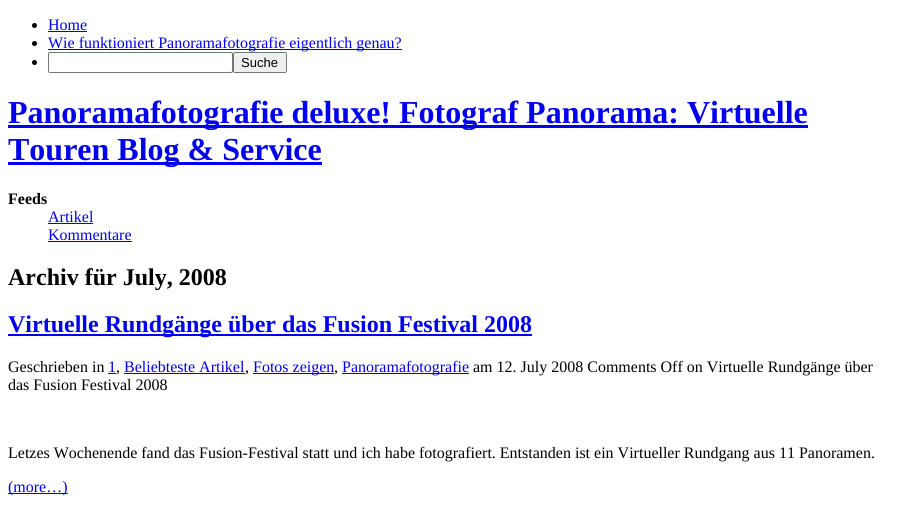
#include <cairo/cairo.h>
#include <math.h>
#include <stddef.h>


static void rounded_rect(cairo_t *cr, double x, double y, double w, double h, double r) {
  cairo_new_sub_path(cr);
  cairo_arc(cr, x + w - r, y + h - r, r, 0, M_PI / 2);
  cairo_arc(cr, x + r, y + h - r, r, M_PI / 2, M_PI);
  cairo_arc(cr, x + r, y + r, r, M_PI, 1.5 * M_PI);
  cairo_arc(cr, x + w - r, y + r, r, 1.5 * M_PI, 2 * M_PI);
  cairo_close_path(cr);
}

static void draw(cairo_t *cr) {
  cairo_set_source_rgb(cr, 1, 1, 1);
  cairo_paint(cr);
  cairo_set_source_rgb(cr, 0, 0, 0);
  cairo_arc(cr, 34.5, 25.5, 2.5, 0, 2 * M_PI);
  cairo_fill(cr);
  cairo_set_source_rgb(cr, 0, 0, 238 / 255.0);
  cairo_rectangle(cr, 48, 31, 39, 1);
  cairo_fill(cr);
  cairo_set_source_rgb(cr, 0, 0, 0);
  cairo_arc(cr, 34.5, 43.5, 2.5, 0, 2 * M_PI);
  cairo_fill(cr);
  cairo_set_source_rgb(cr, 0, 0, 238 / 255.0);
  cairo_rectangle(cr, 48, 49, 354, 1);
  cairo_fill(cr);
  cairo_set_source_rgb(cr, 0, 0, 0);
  cairo_arc(cr, 34.5, 62.5, 2.5, 0, 2 * M_PI);
  cairo_fill(cr);
  rounded_rect(cr, 48.5, 52.5, 184, 20, 1.5);
  cairo_set_source_rgb(cr, 118 / 255.0, 118 / 255.0, 118 / 255.0);
  cairo_set_line_width(cr, 1);
  cairo_stroke(cr);
  cairo_set_source_rgb(cr, 239 / 255.0, 239 / 255.0, 239 / 255.0);
  rounded_rect(cr, 233.5, 52.5, 53, 20, 1.5);
  cairo_fill_preserve(cr);
  cairo_set_source_rgb(cr, 118 / 255.0, 118 / 255.0, 118 / 255.0);
  cairo_stroke(cr);
  cairo_set_source_rgb(cr, 0, 0, 238 / 255.0);
  cairo_rectangle(cr, 8, 125, 800, 3);
  cairo_fill(cr);
  cairo_rectangle(cr, 8, 162, 314, 3);
  cairo_fill(cr);
  cairo_rectangle(cr, 48, 223, 45, 1);
  cairo_fill(cr);
  cairo_rectangle(cr, 48, 241, 84, 1);
  cairo_fill(cr);
  cairo_rectangle(cr, 8, 334, 524, 2);
  cairo_fill(cr);
  cairo_rectangle(cr, 108, 373, 8, 1);
  cairo_fill(cr);
  cairo_rectangle(cr, 124, 373, 121, 1);
  cairo_fill(cr);
  cairo_rectangle(cr, 253, 373, 81, 1);
  cairo_fill(cr);
  cairo_rectangle(cr, 342, 373, 127, 1);
  cairo_fill(cr);
  cairo_rectangle(cr, 8, 493, 60, 1);
  cairo_fill(cr);
  cairo_select_font_face(cr, "Liberation Serif", CAIRO_FONT_SLANT_NORMAL, CAIRO_FONT_WEIGHT_NORMAL);
  cairo_set_font_size(cr, 16);
  cairo_move_to(cr, 48, 30);
  cairo_show_text(cr, "Home");
  cairo_move_to(cr, 48, 48);
  cairo_show_text(cr, "Wie funktioniert Panoramafotografie eigentlich genau?");
  cairo_select_font_face(cr, "Liberation Sans", CAIRO_FONT_SLANT_NORMAL, CAIRO_FONT_WEIGHT_NORMAL);
  cairo_set_font_size(cr, 13);
  cairo_set_source_rgb(cr, 0, 0, 0);
  cairo_move_to(cr, 241, 67);
  cairo_show_text(cr, "Suche");
  cairo_select_font_face(cr, "Liberation Serif", CAIRO_FONT_SLANT_NORMAL, CAIRO_FONT_WEIGHT_BOLD);
  cairo_set_font_size(cr, 32);
  cairo_set_source_rgb(cr, 0, 0, 238 / 255.0);
  cairo_move_to(cr, 8, 123);
  cairo_show_text(cr, "Panoramafotografie deluxe! Fotograf Panorama: Virtuelle");
  cairo_move_to(cr, 8, 160);
  cairo_show_text(cr, "Touren Blog & Service");
  cairo_set_font_size(cr, 16);
  cairo_set_source_rgb(cr, 0, 0, 0);
  cairo_move_to(cr, 8, 204);
  cairo_show_text(cr, "Feeds");
  cairo_select_font_face(cr, "Liberation Serif", CAIRO_FONT_SLANT_NORMAL, CAIRO_FONT_WEIGHT_NORMAL);
  cairo_set_source_rgb(cr, 0, 0, 238 / 255.0);
  cairo_move_to(cr, 48, 222);
  cairo_show_text(cr, "Artikel");
  cairo_move_to(cr, 48, 240);
  cairo_show_text(cr, "Kommentare");
  cairo_select_font_face(cr, "Liberation Serif", CAIRO_FONT_SLANT_NORMAL, CAIRO_FONT_WEIGHT_BOLD);
  cairo_set_font_size(cr, 24);
  cairo_set_source_rgb(cr, 0, 0, 0);
  cairo_move_to(cr, 8, 285);
  cairo_show_text(cr, "Archiv für July, 2008");
  cairo_set_source_rgb(cr, 0, 0, 238 / 255.0);
  cairo_move_to(cr, 8, 332);
  cairo_show_text(cr, "Virtuelle Rundgänge über das Fusion Festival 2008");
  cairo_select_font_face(cr, "Liberation Serif", CAIRO_FONT_SLANT_NORMAL, CAIRO_FONT_WEIGHT_NORMAL);
  cairo_set_font_size(cr, 16);
  cairo_set_source_rgb(cr, 0, 0, 0);
  cairo_move_to(cr, 8, 372);
  cairo_show_text(cr, "Geschrieben in");
  cairo_set_source_rgb(cr, 0, 0, 238 / 255.0);
  cairo_move_to(cr, 108, 372);
  cairo_show_text(cr, "1");
  cairo_set_source_rgb(cr, 0, 0, 0);
  cairo_move_to(cr, 116, 372);
  cairo_show_text(cr, ",");
  cairo_set_source_rgb(cr, 0, 0, 238 / 255.0);
  cairo_move_to(cr, 124, 372);
  cairo_show_text(cr, "Beliebteste Artikel");
  cairo_set_source_rgb(cr, 0, 0, 0);
  cairo_move_to(cr, 245, 372);
  cairo_show_text(cr, ",");
  cairo_set_source_rgb(cr, 0, 0, 238 / 255.0);
  cairo_move_to(cr, 253, 372);
  cairo_show_text(cr, "Fotos zeigen");
  cairo_set_source_rgb(cr, 0, 0, 0);
  cairo_move_to(cr, 334, 372);
  cairo_show_text(cr, ",");
  cairo_set_source_rgb(cr, 0, 0, 238 / 255.0);
  cairo_move_to(cr, 342, 372);
  cairo_show_text(cr, "Panoramafotografie");
  cairo_set_source_rgb(cr, 0, 0, 0);
  cairo_move_to(cr, 473, 372);
  cairo_show_text(cr, "am 12. July 2008 Comments Off on Virtuelle Rundgänge über");
  cairo_move_to(cr, 8, 390);
  cairo_show_text(cr, "das Fusion Festival 2008");
  cairo_move_to(cr, 8, 458);
  cairo_show_text(cr, "Letzes Wochenende fand das Fusion-Festival statt und ich habe fotografiert. Entstanden ist ein Virtueller Rundgang aus 11 Panoramen.");
  cairo_set_source_rgb(cr, 0, 0, 238 / 255.0);
  cairo_move_to(cr, 8, 492);
  cairo_show_text(cr, "(more…)");
}

int main(void) {
  cairo_surface_t *surface = cairo_image_surface_create(CAIRO_FORMAT_RGB24, 903, 513);
  cairo_t *cr = cairo_create(surface);
  cairo_font_options_t *options = cairo_font_options_create();
  cairo_font_options_set_hint_metrics(options, CAIRO_HINT_METRICS_OFF);
  cairo_font_options_set_hint_style(options, CAIRO_HINT_STYLE_NONE);
  cairo_set_font_options(cr, options);
  cairo_set_miter_limit(cr, 4);
  draw(cr);
  cairo_surface_write_to_png(surface, "out.png");
  cairo_font_options_destroy(options);
  cairo_destroy(cr);
  cairo_surface_destroy(surface);
  return 0;
}
